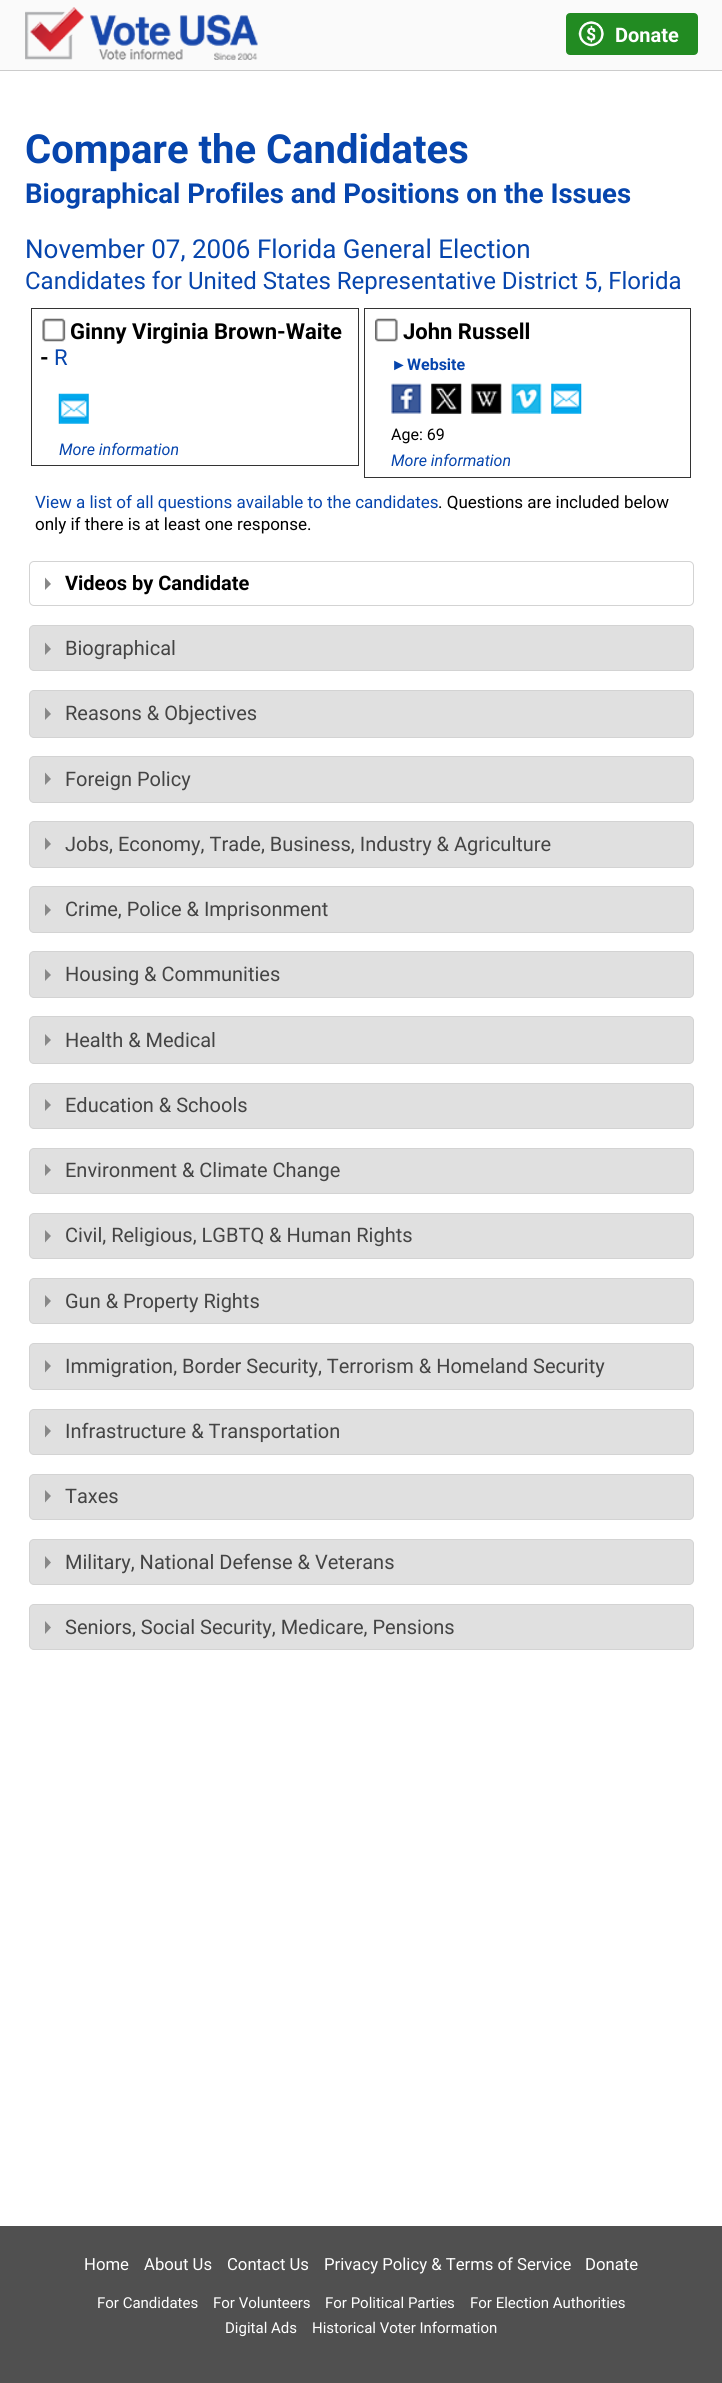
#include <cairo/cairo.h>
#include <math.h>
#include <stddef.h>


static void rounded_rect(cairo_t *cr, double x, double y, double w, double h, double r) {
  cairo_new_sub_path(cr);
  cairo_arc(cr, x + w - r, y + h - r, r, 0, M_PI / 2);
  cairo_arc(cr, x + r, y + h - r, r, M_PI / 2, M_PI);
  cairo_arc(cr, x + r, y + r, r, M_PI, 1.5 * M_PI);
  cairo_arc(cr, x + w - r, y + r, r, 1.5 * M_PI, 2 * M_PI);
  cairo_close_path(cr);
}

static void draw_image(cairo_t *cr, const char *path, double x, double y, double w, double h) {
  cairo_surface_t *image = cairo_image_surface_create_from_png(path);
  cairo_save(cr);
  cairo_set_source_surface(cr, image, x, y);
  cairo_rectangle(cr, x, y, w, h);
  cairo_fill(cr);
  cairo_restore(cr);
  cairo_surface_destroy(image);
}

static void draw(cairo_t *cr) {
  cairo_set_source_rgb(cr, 1, 1, 1);
  cairo_paint(cr);
  cairo_set_source_rgb(cr, 250 / 255.0, 250 / 255.0, 250 / 255.0);
  cairo_rectangle(cr, 0, 0, 722, 70);
  cairo_fill(cr);
  cairo_set_source_rgb(cr, 204 / 255.0, 204 / 255.0, 204 / 255.0);
  cairo_rectangle(cr, 0, 70, 722, 1);
  cairo_fill(cr);
  draw_image(cr, "images/1.png", 25, 7, 233, 53);
  cairo_set_source_rgb(cr, 34 / 255.0, 139 / 255.0, 34 / 255.0);
  rounded_rect(cr, 567.5, 14.5, 129, 39, 2.5);
  cairo_fill_preserve(cr);
  cairo_set_line_width(cr, 3);
  cairo_stroke(cr);
  draw_image(cr, "images/2.png", 578, 21, 26, 26);
  cairo_rectangle(cr, 31.5, 308.5, 327, 157);
  cairo_set_source_rgb(cr, 51 / 255.0, 51 / 255.0, 51 / 255.0);
  cairo_set_line_width(cr, 1);
  cairo_stroke(cr);
  draw_image(cr, "images/3.png", 42, 318, 24, 24);
  draw_image(cr, "images/4.png", 58, 393, 31, 31);
  cairo_rectangle(cr, 364.5, 308.5, 326, 169);
  cairo_stroke(cr);
  draw_image(cr, "images/5.png", 375, 318, 23, 24);
  draw_image(cr, "images/6.png", 391, 383, 31, 31);
  draw_image(cr, "images/7.png", 431, 383, 31, 31);
  draw_image(cr, "images/8.png", 471, 383, 31, 31);
  draw_image(cr, "images/9.png", 511, 383, 31, 31);
  draw_image(cr, "images/10.png", 551, 383, 31, 31);
  rounded_rect(cr, 29.5, 561.5, 664, 44, 4.5);
  cairo_set_source_rgb(cr, 211 / 255.0, 211 / 255.0, 211 / 255.0);
  cairo_stroke(cr);
  cairo_set_source_rgb(cr, 136 / 255.0, 136 / 255.0, 136 / 255.0);
  cairo_new_path(cr);
  cairo_move_to(cr, 45, 590);
  cairo_line_to(cr, 45, 577.5);
  cairo_line_to(cr, 51, 584);
  cairo_close_path(cr);
  cairo_fill(cr);
  cairo_set_source_rgb(cr, 224 / 255.0, 224 / 255.0, 224 / 255.0);
  rounded_rect(cr, 29.5, 625.5, 664, 45, 4.5);
  cairo_fill_preserve(cr);
  cairo_set_source_rgb(cr, 211 / 255.0, 211 / 255.0, 211 / 255.0);
  cairo_stroke(cr);
  cairo_set_source_rgb(cr, 136 / 255.0, 136 / 255.0, 136 / 255.0);
  cairo_new_path(cr);
  cairo_move_to(cr, 45, 655);
  cairo_line_to(cr, 45, 642.5);
  cairo_line_to(cr, 51, 649);
  cairo_close_path(cr);
  cairo_fill(cr);
  cairo_set_source_rgb(cr, 224 / 255.0, 224 / 255.0, 224 / 255.0);
  rounded_rect(cr, 29.5, 690.5, 664, 47, 4.5);
  cairo_fill_preserve(cr);
  cairo_set_source_rgb(cr, 211 / 255.0, 211 / 255.0, 211 / 255.0);
  cairo_stroke(cr);
  cairo_set_source_rgb(cr, 136 / 255.0, 136 / 255.0, 136 / 255.0);
  cairo_new_path(cr);
  cairo_move_to(cr, 45, 720);
  cairo_line_to(cr, 45, 707.5);
  cairo_line_to(cr, 51, 714);
  cairo_close_path(cr);
  cairo_fill(cr);
  cairo_set_source_rgb(cr, 224 / 255.0, 224 / 255.0, 224 / 255.0);
  rounded_rect(cr, 29.5, 756.5, 664, 46, 4.5);
  cairo_fill_preserve(cr);
  cairo_set_source_rgb(cr, 211 / 255.0, 211 / 255.0, 211 / 255.0);
  cairo_stroke(cr);
  cairo_set_source_rgb(cr, 136 / 255.0, 136 / 255.0, 136 / 255.0);
  cairo_new_path(cr);
  cairo_move_to(cr, 45, 785);
  cairo_line_to(cr, 45, 772.5);
  cairo_line_to(cr, 51, 779);
  cairo_close_path(cr);
  cairo_fill(cr);
  cairo_set_source_rgb(cr, 224 / 255.0, 224 / 255.0, 224 / 255.0);
  rounded_rect(cr, 29.5, 821.5, 664, 46, 4.5);
  cairo_fill_preserve(cr);
  cairo_set_source_rgb(cr, 211 / 255.0, 211 / 255.0, 211 / 255.0);
  cairo_stroke(cr);
  cairo_set_source_rgb(cr, 136 / 255.0, 136 / 255.0, 136 / 255.0);
  cairo_new_path(cr);
  cairo_move_to(cr, 45, 850);
  cairo_line_to(cr, 45, 837.5);
  cairo_line_to(cr, 51, 844);
  cairo_close_path(cr);
  cairo_fill(cr);
  cairo_set_source_rgb(cr, 224 / 255.0, 224 / 255.0, 224 / 255.0);
  rounded_rect(cr, 29.5, 886.5, 664, 46, 4.5);
  cairo_fill_preserve(cr);
  cairo_set_source_rgb(cr, 211 / 255.0, 211 / 255.0, 211 / 255.0);
  cairo_stroke(cr);
  cairo_set_source_rgb(cr, 136 / 255.0, 136 / 255.0, 136 / 255.0);
  cairo_new_path(cr);
  cairo_move_to(cr, 45, 916);
  cairo_line_to(cr, 45, 904);
  cairo_line_to(cr, 51, 910);
  cairo_close_path(cr);
  cairo_fill(cr);
  cairo_set_source_rgb(cr, 224 / 255.0, 224 / 255.0, 224 / 255.0);
  rounded_rect(cr, 29.5, 951.5, 664, 46, 4.5);
  cairo_fill_preserve(cr);
  cairo_set_source_rgb(cr, 211 / 255.0, 211 / 255.0, 211 / 255.0);
  cairo_stroke(cr);
  cairo_set_source_rgb(cr, 136 / 255.0, 136 / 255.0, 136 / 255.0);
  cairo_new_path(cr);
  cairo_move_to(cr, 45, 981);
  cairo_line_to(cr, 45, 969);
  cairo_line_to(cr, 51, 975);
  cairo_close_path(cr);
  cairo_fill(cr);
  cairo_set_source_rgb(cr, 224 / 255.0, 224 / 255.0, 224 / 255.0);
  rounded_rect(cr, 29.5, 1016.5, 664, 47, 4.5);
  cairo_fill_preserve(cr);
  cairo_set_source_rgb(cr, 211 / 255.0, 211 / 255.0, 211 / 255.0);
  cairo_stroke(cr);
  cairo_set_source_rgb(cr, 136 / 255.0, 136 / 255.0, 136 / 255.0);
  cairo_new_path(cr);
  cairo_move_to(cr, 45, 1046);
  cairo_line_to(cr, 45, 1034);
  cairo_line_to(cr, 51, 1040);
  cairo_close_path(cr);
  cairo_fill(cr);
  cairo_set_source_rgb(cr, 224 / 255.0, 224 / 255.0, 224 / 255.0);
  rounded_rect(cr, 29.5, 1083.5, 664, 45, 4.5);
  cairo_fill_preserve(cr);
  cairo_set_source_rgb(cr, 211 / 255.0, 211 / 255.0, 211 / 255.0);
  cairo_stroke(cr);
  cairo_set_source_rgb(cr, 136 / 255.0, 136 / 255.0, 136 / 255.0);
  cairo_new_path(cr);
  cairo_move_to(cr, 45, 1111);
  cairo_line_to(cr, 45, 1099);
  cairo_line_to(cr, 51, 1105);
  cairo_close_path(cr);
  cairo_fill(cr);
  cairo_set_source_rgb(cr, 224 / 255.0, 224 / 255.0, 224 / 255.0);
  rounded_rect(cr, 29.5, 1148.5, 664, 45, 4.5);
  cairo_fill_preserve(cr);
  cairo_set_source_rgb(cr, 211 / 255.0, 211 / 255.0, 211 / 255.0);
  cairo_stroke(cr);
  cairo_set_source_rgb(cr, 136 / 255.0, 136 / 255.0, 136 / 255.0);
  cairo_new_path(cr);
  cairo_move_to(cr, 45, 1176);
  cairo_line_to(cr, 45, 1164);
  cairo_line_to(cr, 51, 1170);
  cairo_close_path(cr);
  cairo_fill(cr);
  cairo_set_source_rgb(cr, 224 / 255.0, 224 / 255.0, 224 / 255.0);
  rounded_rect(cr, 29.5, 1213.5, 664, 45, 4.5);
  cairo_fill_preserve(cr);
  cairo_set_source_rgb(cr, 211 / 255.0, 211 / 255.0, 211 / 255.0);
  cairo_stroke(cr);
  cairo_set_source_rgb(cr, 136 / 255.0, 136 / 255.0, 136 / 255.0);
  cairo_new_path(cr);
  cairo_move_to(cr, 45, 1242.5);
  cairo_line_to(cr, 45, 1230);
  cairo_line_to(cr, 51, 1236);
  cairo_close_path(cr);
  cairo_fill(cr);
  cairo_set_source_rgb(cr, 224 / 255.0, 224 / 255.0, 224 / 255.0);
  rounded_rect(cr, 29.5, 1278.5, 664, 45, 4.5);
  cairo_fill_preserve(cr);
  cairo_set_source_rgb(cr, 211 / 255.0, 211 / 255.0, 211 / 255.0);
  cairo_stroke(cr);
  cairo_set_source_rgb(cr, 136 / 255.0, 136 / 255.0, 136 / 255.0);
  cairo_new_path(cr);
  cairo_move_to(cr, 45, 1307.5);
  cairo_line_to(cr, 45, 1295);
  cairo_line_to(cr, 51, 1301);
  cairo_close_path(cr);
  cairo_fill(cr);
  cairo_set_source_rgb(cr, 224 / 255.0, 224 / 255.0, 224 / 255.0);
  rounded_rect(cr, 29.5, 1343.5, 664, 46, 4.5);
  cairo_fill_preserve(cr);
  cairo_set_source_rgb(cr, 211 / 255.0, 211 / 255.0, 211 / 255.0);
  cairo_stroke(cr);
  cairo_set_source_rgb(cr, 136 / 255.0, 136 / 255.0, 136 / 255.0);
  cairo_new_path(cr);
  cairo_move_to(cr, 45, 1372.5);
  cairo_line_to(cr, 45, 1360);
  cairo_line_to(cr, 51, 1366);
  cairo_close_path(cr);
  cairo_fill(cr);
  cairo_set_source_rgb(cr, 224 / 255.0, 224 / 255.0, 224 / 255.0);
  rounded_rect(cr, 29.5, 1409.5, 664, 45, 4.5);
  cairo_fill_preserve(cr);
  cairo_set_source_rgb(cr, 211 / 255.0, 211 / 255.0, 211 / 255.0);
  cairo_stroke(cr);
  cairo_set_source_rgb(cr, 136 / 255.0, 136 / 255.0, 136 / 255.0);
  cairo_new_path(cr);
  cairo_move_to(cr, 45, 1437.5);
  cairo_line_to(cr, 45, 1425);
  cairo_line_to(cr, 51, 1431);
  cairo_close_path(cr);
  cairo_fill(cr);
  cairo_set_source_rgb(cr, 224 / 255.0, 224 / 255.0, 224 / 255.0);
  rounded_rect(cr, 29.5, 1474.5, 664, 45, 4.5);
  cairo_fill_preserve(cr);
  cairo_set_source_rgb(cr, 211 / 255.0, 211 / 255.0, 211 / 255.0);
  cairo_stroke(cr);
  cairo_set_source_rgb(cr, 136 / 255.0, 136 / 255.0, 136 / 255.0);
  cairo_new_path(cr);
  cairo_move_to(cr, 45, 1502.5);
  cairo_line_to(cr, 45, 1490);
  cairo_line_to(cr, 51, 1496);
  cairo_close_path(cr);
  cairo_fill(cr);
  cairo_set_source_rgb(cr, 224 / 255.0, 224 / 255.0, 224 / 255.0);
  rounded_rect(cr, 29.5, 1539.5, 664, 45, 4.5);
  cairo_fill_preserve(cr);
  cairo_set_source_rgb(cr, 211 / 255.0, 211 / 255.0, 211 / 255.0);
  cairo_stroke(cr);
  cairo_set_source_rgb(cr, 136 / 255.0, 136 / 255.0, 136 / 255.0);
  cairo_new_path(cr);
  cairo_move_to(cr, 45, 1569);
  cairo_line_to(cr, 45, 1556);
  cairo_line_to(cr, 51, 1562.5);
  cairo_close_path(cr);
  cairo_fill(cr);
  cairo_set_source_rgb(cr, 224 / 255.0, 224 / 255.0, 224 / 255.0);
  rounded_rect(cr, 29.5, 1604.5, 664, 45, 4.5);
  cairo_fill_preserve(cr);
  cairo_set_source_rgb(cr, 211 / 255.0, 211 / 255.0, 211 / 255.0);
  cairo_stroke(cr);
  cairo_set_source_rgb(cr, 136 / 255.0, 136 / 255.0, 136 / 255.0);
  cairo_new_path(cr);
  cairo_move_to(cr, 45, 1634);
  cairo_line_to(cr, 45, 1621);
  cairo_line_to(cr, 51, 1627.5);
  cairo_close_path(cr);
  cairo_fill(cr);
  cairo_set_source_rgb(cr, 80 / 255.0, 80 / 255.0, 80 / 255.0);
  cairo_rectangle(cr, 0, 2226, 722, 157);
  cairo_fill(cr);
  cairo_select_font_face(cr, "Roboto", CAIRO_FONT_SLANT_NORMAL, CAIRO_FONT_WEIGHT_BOLD);
  cairo_set_font_size(cr, 20);
  cairo_set_source_rgb(cr, 1, 1, 1);
  cairo_move_to(cr, 615, 42);
  cairo_show_text(cr, "Donate");
  cairo_set_font_size(cr, 40);
  cairo_set_source_rgb(cr, 6 / 255.0, 69 / 255.0, 173 / 255.0);
  cairo_move_to(cr, 25, 163);
  cairo_show_text(cr, "Compare the Candidates");
  cairo_set_font_size(cr, 27.5);
  cairo_move_to(cr, 25, 203);
  cairo_show_text(cr, "Biographical Profiles and Positions on the Issues");
  cairo_select_font_face(cr, "Roboto", CAIRO_FONT_SLANT_NORMAL, CAIRO_FONT_WEIGHT_NORMAL);
  cairo_set_font_size(cr, 26);
  cairo_move_to(cr, 25, 258);
  cairo_show_text(cr, "November 07, 2006 Florida General Election");
  cairo_set_font_size(cr, 24);
  cairo_move_to(cr, 25, 289);
  cairo_show_text(cr, "Candidates for United States Representative District 5, Florida");
  cairo_select_font_face(cr, "Roboto", CAIRO_FONT_SLANT_NORMAL, CAIRO_FONT_WEIGHT_BOLD);
  cairo_set_font_size(cr, 22);
  cairo_set_source_rgb(cr, 0, 0, 0);
  cairo_move_to(cr, 70, 339);
  cairo_show_text(cr, "Ginny Virginia Brown-Waite");
  cairo_move_to(cr, 40, 365);
  cairo_show_text(cr, "-");
  cairo_select_font_face(cr, "Roboto", CAIRO_FONT_SLANT_NORMAL, CAIRO_FONT_WEIGHT_NORMAL);
  cairo_set_source_rgb(cr, 6 / 255.0, 69 / 255.0, 173 / 255.0);
  cairo_move_to(cr, 54, 365);
  cairo_show_text(cr, "R");
  cairo_select_font_face(cr, "Roboto", CAIRO_FONT_SLANT_ITALIC, CAIRO_FONT_WEIGHT_NORMAL);
  cairo_set_font_size(cr, 16);
  cairo_move_to(cr, 59, 455);
  cairo_show_text(cr, "More information");
  cairo_select_font_face(cr, "Roboto", CAIRO_FONT_SLANT_NORMAL, CAIRO_FONT_WEIGHT_BOLD);
  cairo_set_font_size(cr, 22);
  cairo_set_source_rgb(cr, 0, 0, 0);
  cairo_move_to(cr, 403, 339);
  cairo_show_text(cr, "John Russell");
  cairo_select_font_face(cr, "Liberation Sans", CAIRO_FONT_SLANT_NORMAL, CAIRO_FONT_WEIGHT_BOLD);
  cairo_set_font_size(cr, 16);
  cairo_set_source_rgb(cr, 6 / 255.0, 69 / 255.0, 173 / 255.0);
  cairo_move_to(cr, 391, 370);
  cairo_show_text(cr, "►");
  cairo_select_font_face(cr, "Roboto", CAIRO_FONT_SLANT_NORMAL, CAIRO_FONT_WEIGHT_BOLD);
  cairo_move_to(cr, 407, 370);
  cairo_show_text(cr, "Website");
  cairo_select_font_face(cr, "Roboto", CAIRO_FONT_SLANT_NORMAL, CAIRO_FONT_WEIGHT_NORMAL);
  cairo_set_source_rgb(cr, 0, 0, 0);
  cairo_move_to(cr, 391, 440);
  cairo_show_text(cr, "Age: 69");
  cairo_select_font_face(cr, "Roboto", CAIRO_FONT_SLANT_ITALIC, CAIRO_FONT_WEIGHT_NORMAL);
  cairo_set_source_rgb(cr, 6 / 255.0, 69 / 255.0, 173 / 255.0);
  cairo_move_to(cr, 391, 466);
  cairo_show_text(cr, "More information");
  cairo_select_font_face(cr, "Roboto", CAIRO_FONT_SLANT_NORMAL, CAIRO_FONT_WEIGHT_NORMAL);
  cairo_set_font_size(cr, 17);
  cairo_move_to(cr, 35, 508);
  cairo_show_text(cr, "View a list of all questions available to the candidates");
  cairo_set_source_rgb(cr, 0, 0, 0);
  cairo_move_to(cr, 438, 508);
  cairo_show_text(cr, ". Questions are included below");
  cairo_move_to(cr, 35, 530);
  cairo_show_text(cr, "only if there is at least one response.");
  cairo_select_font_face(cr, "Roboto", CAIRO_FONT_SLANT_NORMAL, CAIRO_FONT_WEIGHT_BOLD);
  cairo_set_font_size(cr, 20);
  cairo_move_to(cr, 65, 590);
  cairo_show_text(cr, "Videos by Candidate");
  cairo_select_font_face(cr, "Roboto", CAIRO_FONT_SLANT_NORMAL, CAIRO_FONT_WEIGHT_NORMAL);
  cairo_set_source_rgb(cr, 68 / 255.0, 68 / 255.0, 68 / 255.0);
  cairo_move_to(cr, 65, 655);
  cairo_show_text(cr, "Biographical");
  cairo_move_to(cr, 65, 720);
  cairo_show_text(cr, "Reasons & Objectives");
  cairo_move_to(cr, 65, 786);
  cairo_show_text(cr, "Foreign Policy");
  cairo_move_to(cr, 65, 851);
  cairo_show_text(cr, "Jobs, Economy, Trade, Business, Industry & Agriculture");
  cairo_move_to(cr, 65, 916);
  cairo_show_text(cr, "Crime, Police & Imprisonment");
  cairo_move_to(cr, 65, 981);
  cairo_show_text(cr, "Housing & Communities");
  cairo_move_to(cr, 65, 1047);
  cairo_show_text(cr, "Health & Medical");
  cairo_move_to(cr, 65, 1112);
  cairo_show_text(cr, "Education & Schools");
  cairo_move_to(cr, 65, 1177);
  cairo_show_text(cr, "Environment & Climate Change");
  cairo_move_to(cr, 65, 1242);
  cairo_show_text(cr, "Civil, Religious, LGBTQ & Human Rights");
  cairo_move_to(cr, 65, 1308);
  cairo_show_text(cr, "Gun & Property Rights");
  cairo_move_to(cr, 65, 1373);
  cairo_show_text(cr, "Immigration, Border Security, Terrorism & Homeland Security");
  cairo_move_to(cr, 65, 1438);
  cairo_show_text(cr, "Infrastructure & Transportation");
  cairo_move_to(cr, 65, 1503);
  cairo_show_text(cr, "Taxes");
  cairo_move_to(cr, 65, 1569);
  cairo_show_text(cr, "Military, National Defense & Veterans");
  cairo_move_to(cr, 65, 1634);
  cairo_show_text(cr, "Seniors, Social Security, Medicare, Pensions");
  cairo_set_font_size(cr, 16.7);
  cairo_set_source_rgb(cr, 1, 1, 1);
  cairo_move_to(cr, 84, 2270);
  cairo_show_text(cr, "Home");
  cairo_move_to(cr, 144, 2270);
  cairo_show_text(cr, "About Us");
  cairo_move_to(cr, 227, 2270);
  cairo_show_text(cr, "Contact Us");
  cairo_move_to(cr, 324, 2270);
  cairo_show_text(cr, "Privacy Policy & Terms of Service");
  cairo_move_to(cr, 585, 2270);
  cairo_show_text(cr, "Donate");
  cairo_set_font_size(cr, 15);
  cairo_move_to(cr, 97, 2308);
  cairo_show_text(cr, "For Candidates");
  cairo_move_to(cr, 213, 2308);
  cairo_show_text(cr, "For Volunteers");
  cairo_move_to(cr, 325, 2308);
  cairo_show_text(cr, "For Political Parties");
  cairo_move_to(cr, 470, 2308);
  cairo_show_text(cr, "For Election Authorities");
  cairo_move_to(cr, 225, 2333);
  cairo_show_text(cr, "Digital Ads");
  cairo_move_to(cr, 312, 2333);
  cairo_show_text(cr, "Historical Voter Information");
}

int main(void) {
  cairo_surface_t *surface = cairo_image_surface_create(CAIRO_FORMAT_RGB24, 722, 2383);
  cairo_t *cr = cairo_create(surface);
  cairo_font_options_t *options = cairo_font_options_create();
  cairo_font_options_set_hint_metrics(options, CAIRO_HINT_METRICS_OFF);
  cairo_font_options_set_hint_style(options, CAIRO_HINT_STYLE_NONE);
  cairo_set_font_options(cr, options);
  cairo_set_miter_limit(cr, 4);
  draw(cr);
  cairo_surface_write_to_png(surface, "out.png");
  cairo_font_options_destroy(options);
  cairo_destroy(cr);
  cairo_surface_destroy(surface);
  return 0;
}
